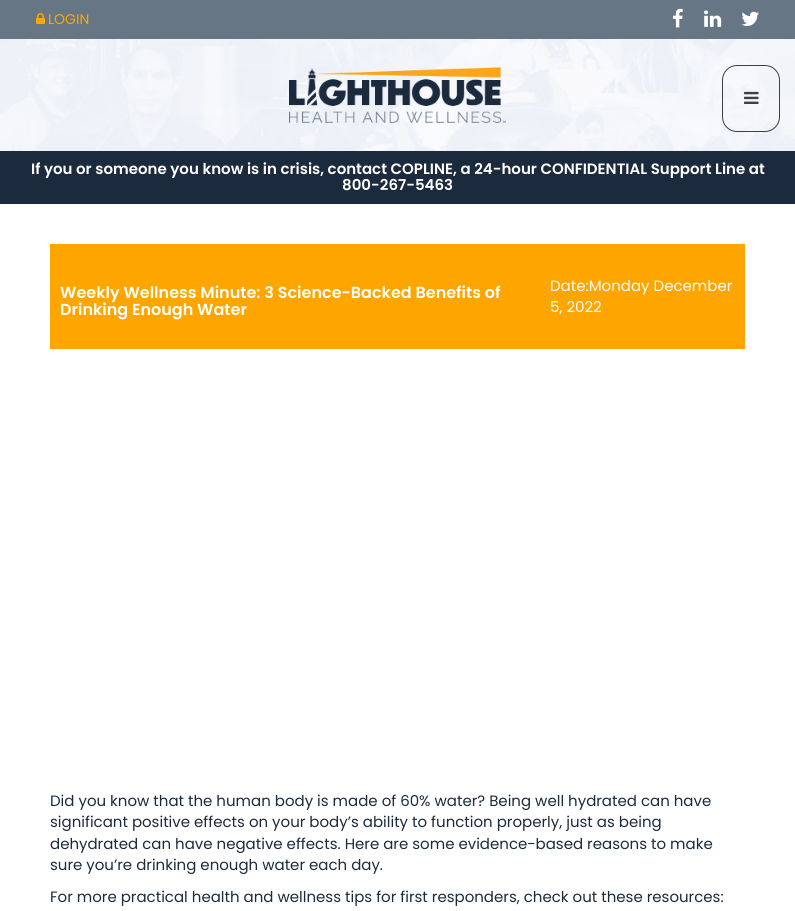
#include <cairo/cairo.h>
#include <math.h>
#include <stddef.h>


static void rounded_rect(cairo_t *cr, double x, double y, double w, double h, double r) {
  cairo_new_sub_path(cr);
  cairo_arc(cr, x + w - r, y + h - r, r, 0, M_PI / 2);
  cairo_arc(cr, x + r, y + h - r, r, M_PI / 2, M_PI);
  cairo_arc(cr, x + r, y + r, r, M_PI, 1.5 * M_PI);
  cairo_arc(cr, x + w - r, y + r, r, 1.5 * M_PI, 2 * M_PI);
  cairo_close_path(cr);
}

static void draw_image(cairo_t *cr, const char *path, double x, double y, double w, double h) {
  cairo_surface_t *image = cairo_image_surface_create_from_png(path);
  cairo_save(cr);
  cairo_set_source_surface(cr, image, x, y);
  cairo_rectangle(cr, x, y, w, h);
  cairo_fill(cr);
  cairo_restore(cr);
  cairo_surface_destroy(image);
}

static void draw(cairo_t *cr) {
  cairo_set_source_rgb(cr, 1, 1, 1);
  cairo_paint(cr);
  cairo_set_source_rgb(cr, 103 / 255.0, 118 / 255.0, 132 / 255.0);
  cairo_rectangle(cr, 0, 0, 795, 39);
  cairo_fill(cr);
  draw_image(cr, "images/1.png", 36, 13, 9, 11);
  draw_image(cr, "images/2.png", 673, 8, 10, 20);
  draw_image(cr, "images/3.png", 704, 10, 18, 17);
  draw_image(cr, "images/4.png", 741, 11, 18, 15);
  draw_image(cr, "images/5.png", 0, 39, 795, 112);
  draw_image(cr, "images/6.png", 289, 67, 217, 56);
  rounded_rect(cr, 722.5, 65.5, 57, 66, 14.5);
  cairo_set_source_rgb(cr, 64 / 255.0, 64 / 255.0, 65 / 255.0);
  cairo_set_line_width(cr, 1);
  cairo_stroke(cr);
  draw_image(cr, "images/7.png", 744, 91, 15, 13);
  cairo_set_source_rgb(cr, 28 / 255.0, 42 / 255.0, 61 / 255.0);
  cairo_rectangle(cr, 0, 151, 795, 53);
  cairo_fill(cr);
  cairo_set_source_rgb(cr, 1, 165 / 255.0, 0);
  cairo_rectangle(cr, 50, 244, 695, 105);
  cairo_fill(cr);
  cairo_select_font_face(cr, "Poppins", CAIRO_FONT_SLANT_NORMAL, CAIRO_FONT_WEIGHT_NORMAL);
  cairo_set_font_size(cr, 14);
  cairo_set_source_rgb(cr, 1, 166 / 255.0, 0);
  cairo_move_to(cr, 48, 24);
  cairo_show_text(cr, "LOGIN");
  cairo_select_font_face(cr, "Poppins SemiBold", CAIRO_FONT_SLANT_NORMAL, CAIRO_FONT_WEIGHT_NORMAL);
  cairo_set_font_size(cr, 15);
  cairo_set_source_rgb(cr, 1, 1, 1);
  cairo_move_to(cr, 31, 174);
  cairo_show_text(cr, "If you or someone you know is in crisis, contact COPLINE, a 24-hour CONFIDENTIAL Support Line at");
  cairo_move_to(cr, 342, 190);
  cairo_show_text(cr, "800-267-5463");
  cairo_set_font_size(cr, 16);
  cairo_move_to(cr, 60, 298);
  cairo_show_text(cr, "Weekly Wellness Minute: 3 Science-Backed Benefits of");
  cairo_move_to(cr, 60, 315);
  cairo_show_text(cr, "Drinking Enough Water");
  cairo_select_font_face(cr, "Poppins", CAIRO_FONT_SLANT_NORMAL, CAIRO_FONT_WEIGHT_NORMAL);
  cairo_set_font_size(cr, 15);
  cairo_move_to(cr, 550, 291);
  cairo_show_text(cr, "Date:Monday December");
  cairo_move_to(cr, 550, 312);
  cairo_show_text(cr, "5, 2022");
  cairo_set_source_rgb(cr, 28 / 255.0, 42 / 255.0, 61 / 255.0);
  cairo_move_to(cr, 50, 806);
  cairo_show_text(cr, "Did you know that the human body is made of 60% water? Being well hydrated can have");
  cairo_move_to(cr, 50, 827);
  cairo_show_text(cr, "significant positive effects on your body’s ability to function properly, just as being");
  cairo_move_to(cr, 50, 849);
  cairo_show_text(cr, "dehydrated can have negative effects. Here are some evidence-based reasons to make");
  cairo_move_to(cr, 50, 870);
  cairo_show_text(cr, "sure you’re drinking enough water each day.");
  cairo_move_to(cr, 50, 902);
  cairo_show_text(cr, "For more practical health and wellness tips for first responders, check out these resources:");
}

int main(void) {
  cairo_surface_t *surface = cairo_image_surface_create(CAIRO_FORMAT_RGB24, 795, 911);
  cairo_t *cr = cairo_create(surface);
  cairo_font_options_t *options = cairo_font_options_create();
  cairo_font_options_set_hint_metrics(options, CAIRO_HINT_METRICS_OFF);
  cairo_font_options_set_hint_style(options, CAIRO_HINT_STYLE_NONE);
  cairo_set_font_options(cr, options);
  cairo_set_miter_limit(cr, 4);
  draw(cr);
  cairo_surface_write_to_png(surface, "out.png");
  cairo_font_options_destroy(options);
  cairo_destroy(cr);
  cairo_surface_destroy(surface);
  return 0;
}
